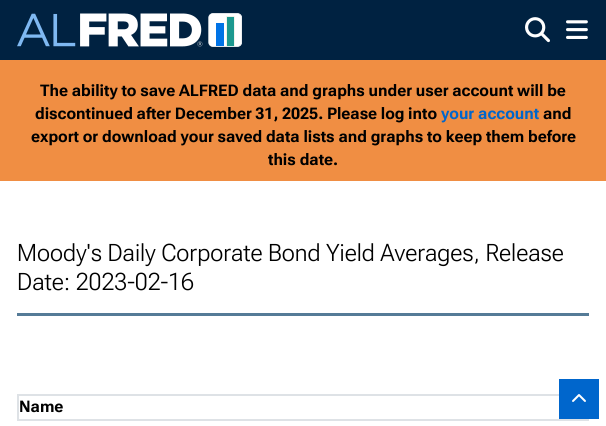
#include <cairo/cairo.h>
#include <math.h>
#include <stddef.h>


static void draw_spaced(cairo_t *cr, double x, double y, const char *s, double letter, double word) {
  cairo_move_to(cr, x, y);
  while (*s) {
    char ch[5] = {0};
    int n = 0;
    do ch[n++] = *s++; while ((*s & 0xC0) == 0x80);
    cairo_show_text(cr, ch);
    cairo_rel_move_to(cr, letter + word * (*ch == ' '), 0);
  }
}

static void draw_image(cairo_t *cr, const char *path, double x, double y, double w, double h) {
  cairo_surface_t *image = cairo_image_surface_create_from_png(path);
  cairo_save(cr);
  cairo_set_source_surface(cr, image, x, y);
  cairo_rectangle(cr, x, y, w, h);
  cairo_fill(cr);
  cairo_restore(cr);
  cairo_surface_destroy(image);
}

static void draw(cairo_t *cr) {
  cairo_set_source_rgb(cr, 1, 1, 1);
  cairo_paint(cr);
  cairo_set_source_rgb(cr, 0, 34 / 255.0, 65 / 255.0);
  cairo_rectangle(cr, 0, 0, 606, 60);
  cairo_fill(cr);
  draw_image(cr, "images/1.png", 17, 13, 225, 34);
  draw_image(cr, "images/2.png", 525, 17, 25, 26);
  draw_image(cr, "images/3.png", 566, 20, 22, 19);
  cairo_set_source_rgb(cr, 240 / 255.0, 142 / 255.0, 67 / 255.0);
  cairo_rectangle(cr, 0, 60, 606, 121);
  cairo_fill(cr);
  cairo_set_source_rgb(cr, 85 / 255.0, 123 / 255.0, 151 / 255.0);
  cairo_rectangle(cr, 17, 313, 572, 3);
  cairo_fill(cr);
  cairo_set_source_rgb(cr, 222 / 255.0, 226 / 255.0, 230 / 255.0);
  cairo_rectangle(cr, 17, 394, 542, 2);
  cairo_fill(cr);
  cairo_rectangle(cr, 17, 419, 572, 2);
  cairo_fill(cr);
  cairo_rectangle(cr, 17, 394, 2, 27);
  cairo_fill(cr);
  cairo_set_source_rgb(cr, 0, 102 / 255.0, 204 / 255.0);
  cairo_rectangle(cr, 559, 379, 40, 40);
  cairo_fill(cr);
  draw_image(cr, "images/4.png", 572, 394, 14, 8);
  cairo_select_font_face(cr, "Roboto Flex", CAIRO_FONT_SLANT_NORMAL, CAIRO_FONT_WEIGHT_BOLD);
  cairo_set_font_size(cr, 16);
  cairo_set_source_rgb(cr, 0, 0, 0);
  draw_spaced(cr, 40, 96, "The ability to save ALFRED data and graphs under user account will be", 0, -0.1);
  draw_spaced(cr, 35, 119, "discontinued after December 31, 2025. Please log into", 0, -0.25);
  cairo_set_source_rgb(cr, 0, 102 / 255.0, 204 / 255.0);
  cairo_move_to(cr, 441, 119);
  cairo_show_text(cr, "your account");
  cairo_set_source_rgb(cr, 0, 0, 0);
  cairo_move_to(cr, 543, 119);
  cairo_show_text(cr, "and");
  draw_spaced(cr, 31, 142, "export or download your saved data lists and graphs to keep them before", 0, -0.1);
  cairo_move_to(cr, 268, 165);
  cairo_show_text(cr, "this date.");
  cairo_select_font_face(cr, "Roboto Flex Light", CAIRO_FONT_SLANT_NORMAL, CAIRO_FONT_WEIGHT_NORMAL);
  cairo_set_font_size(cr, 24);
  cairo_move_to(cr, 17, 261);
  cairo_show_text(cr, "Moody's Daily Corporate Bond Yield Averages, Release");
  cairo_move_to(cr, 17, 290);
  cairo_show_text(cr, "Date: 2023-02-16");
  cairo_select_font_face(cr, "Roboto Flex", CAIRO_FONT_SLANT_NORMAL, CAIRO_FONT_WEIGHT_BOLD);
  cairo_set_font_size(cr, 16);
  cairo_move_to(cr, 19, 412);
  cairo_show_text(cr, "Name");
}

int main(void) {
  cairo_surface_t *surface = cairo_image_surface_create(CAIRO_FORMAT_RGB24, 606, 426);
  cairo_t *cr = cairo_create(surface);
  cairo_font_options_t *options = cairo_font_options_create();
  cairo_font_options_set_hint_metrics(options, CAIRO_HINT_METRICS_OFF);
  cairo_font_options_set_hint_style(options, CAIRO_HINT_STYLE_NONE);
  cairo_set_font_options(cr, options);
  cairo_set_miter_limit(cr, 4);
  draw(cr);
  cairo_surface_write_to_png(surface, "out.png");
  cairo_font_options_destroy(options);
  cairo_destroy(cr);
  cairo_surface_destroy(surface);
  return 0;
}
